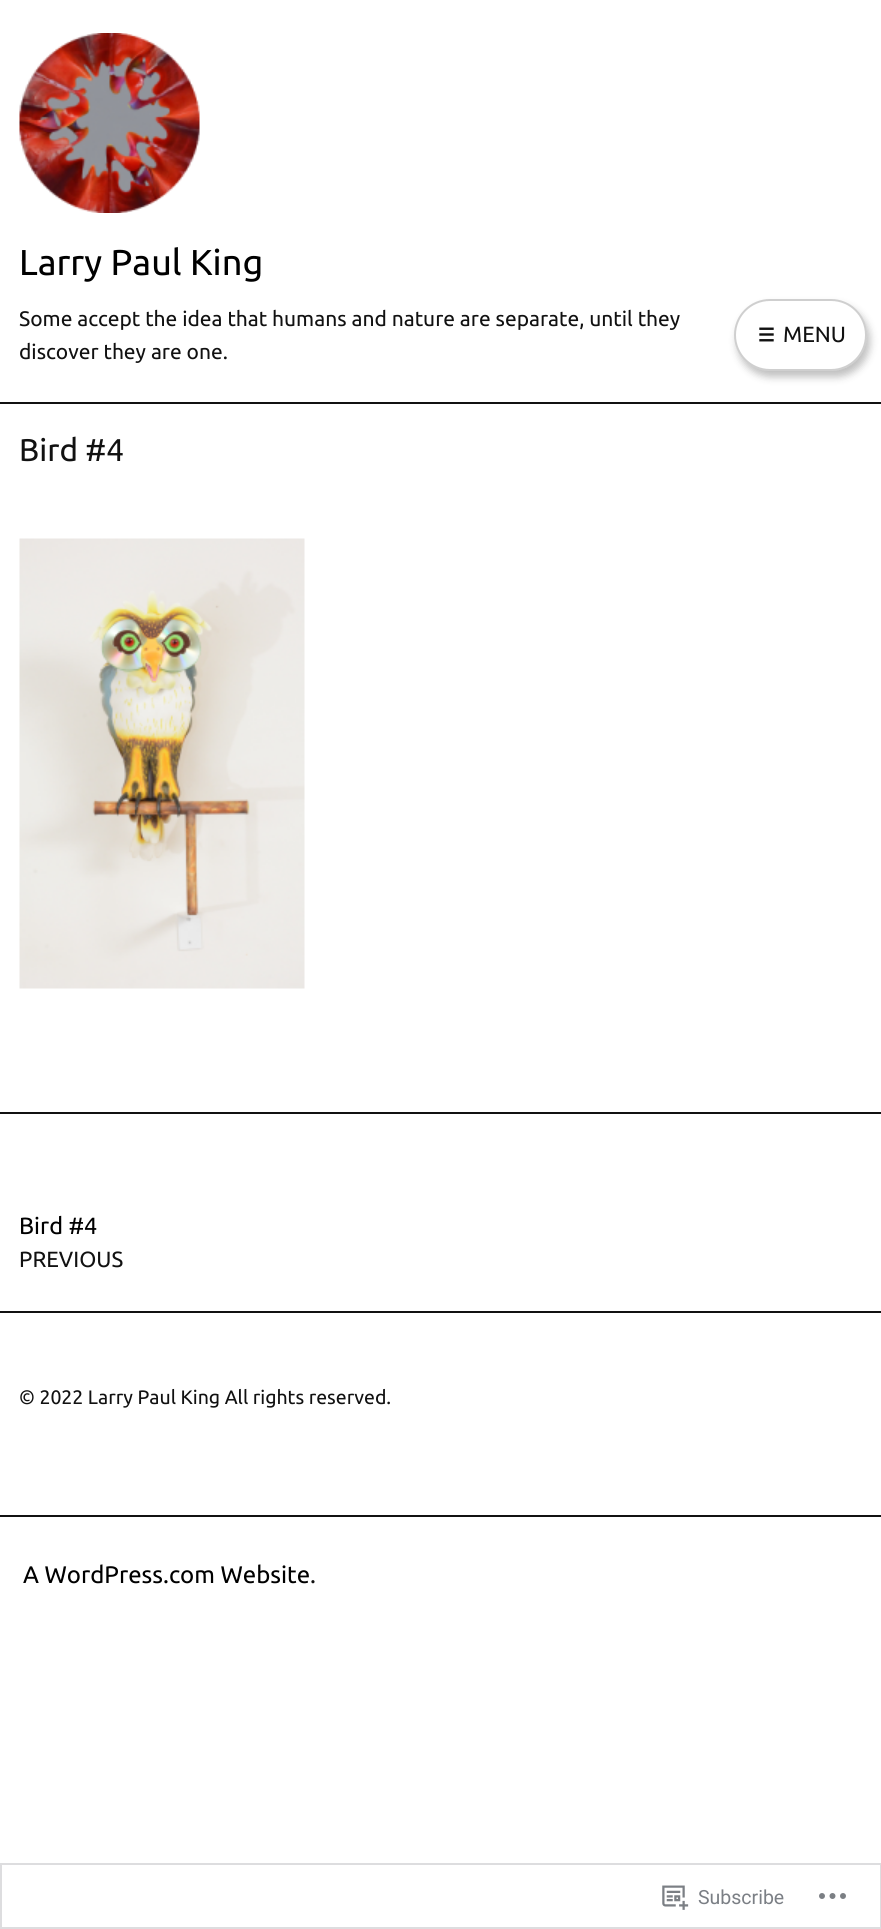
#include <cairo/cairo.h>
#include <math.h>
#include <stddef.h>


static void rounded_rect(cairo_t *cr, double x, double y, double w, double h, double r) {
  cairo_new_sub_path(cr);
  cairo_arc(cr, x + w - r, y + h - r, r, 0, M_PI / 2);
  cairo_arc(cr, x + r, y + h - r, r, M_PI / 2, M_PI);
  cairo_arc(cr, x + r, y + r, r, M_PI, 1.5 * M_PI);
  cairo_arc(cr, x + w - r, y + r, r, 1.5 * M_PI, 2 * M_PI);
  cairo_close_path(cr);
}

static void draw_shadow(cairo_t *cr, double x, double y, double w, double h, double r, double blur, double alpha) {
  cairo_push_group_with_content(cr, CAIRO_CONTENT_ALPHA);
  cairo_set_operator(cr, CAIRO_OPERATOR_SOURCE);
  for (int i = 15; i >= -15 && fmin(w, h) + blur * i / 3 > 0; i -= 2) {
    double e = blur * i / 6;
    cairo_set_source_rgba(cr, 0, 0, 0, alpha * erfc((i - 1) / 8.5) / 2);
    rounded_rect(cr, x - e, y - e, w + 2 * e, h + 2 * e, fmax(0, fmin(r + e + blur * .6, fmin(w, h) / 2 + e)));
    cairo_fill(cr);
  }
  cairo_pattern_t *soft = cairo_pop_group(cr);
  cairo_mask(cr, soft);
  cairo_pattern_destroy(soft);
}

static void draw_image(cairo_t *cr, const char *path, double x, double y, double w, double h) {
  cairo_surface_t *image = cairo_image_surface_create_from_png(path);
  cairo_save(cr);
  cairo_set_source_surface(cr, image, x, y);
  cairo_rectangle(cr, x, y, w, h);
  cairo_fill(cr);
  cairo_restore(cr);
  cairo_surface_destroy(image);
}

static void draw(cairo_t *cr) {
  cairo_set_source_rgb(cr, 1, 1, 1);
  cairo_paint(cr);
  draw_image(cr, "images/1.png", 19, 33, 181, 180);
  cairo_set_source_rgb(cr, 0, 0, 0);
  draw_shadow(cr, 737, 305, 133, 72, 36, 4, 0.25);
  cairo_set_source_rgb(cr, 1, 1, 1);
  rounded_rect(cr, 734, 299, 133, 72, 36);
  cairo_fill(cr);
  rounded_rect(cr, 735, 300, 131, 70, 35);
  cairo_set_source_rgba(cr, 17 / 255.0, 17 / 255.0, 17 / 255.0, 0.2);
  cairo_stroke(cr);
  draw_image(cr, "images/2.png", 759, 327, 15, 15);
  cairo_set_source_rgb(cr, 17 / 255.0, 17 / 255.0, 17 / 255.0);
  cairo_rectangle(cr, 0, 402, 881, 2);
  cairo_fill(cr);
  draw_image(cr, "images/3.png", 19, 538, 286, 451);
  cairo_rectangle(cr, 0, 1112, 881, 2);
  cairo_fill(cr);
  cairo_rectangle(cr, 0, 1311, 881, 2);
  cairo_fill(cr);
  cairo_rectangle(cr, 0, 1515, 881, 2);
  cairo_fill(cr);
  cairo_rectangle(cr, 1, 1864, 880, 64);
  cairo_set_source_rgb(cr, 221 / 255.0, 221 / 255.0, 223 / 255.0);
  cairo_stroke(cr);
  draw_image(cr, "images/4.png", 662, 1885, 27, 25);
  draw_image(cr, "images/5.png", 819, 1893, 27, 6);
  cairo_select_font_face(cr, "Ubuntu", CAIRO_FONT_SLANT_NORMAL, CAIRO_FONT_WEIGHT_NORMAL);
  cairo_set_font_size(cr, 36);
  cairo_set_source_rgb(cr, 0, 0, 0);
  cairo_move_to(cr, 19, 275);
  cairo_show_text(cr, "Larry Paul King");
  cairo_set_font_size(cr, 21);
  cairo_set_source_rgb(cr, 17 / 255.0, 17 / 255.0, 17 / 255.0);
  cairo_move_to(cr, 19, 326);
  cairo_show_text(cr, "Some accept the idea that humans and nature are separate, until they");
  cairo_move_to(cr, 19, 359);
  cairo_show_text(cr, "discover they are one.");
  cairo_set_font_size(cr, 22);
  cairo_move_to(cr, 783, 342);
  cairo_show_text(cr, "MENU");
  cairo_set_font_size(cr, 31.5);
  cairo_move_to(cr, 19, 461);
  cairo_show_text(cr, "Bird #4");
  cairo_set_font_size(cr, 23.5);
  cairo_set_source_rgb(cr, 0, 0, 0);
  cairo_move_to(cr, 19, 1234);
  cairo_show_text(cr, "Bird #4");
  cairo_set_font_size(cr, 22);
  cairo_set_source_rgb(cr, 17 / 255.0, 17 / 255.0, 17 / 255.0);
  cairo_move_to(cr, 19, 1267);
  cairo_show_text(cr, "PREVIOUS");
  cairo_set_font_size(cr, 19.5);
  cairo_move_to(cr, 19, 1404);
  cairo_show_text(cr, "© 2022 Larry Paul King All rights reserved.");
  cairo_set_font_size(cr, 24);
  cairo_set_source_rgb(cr, 0, 0, 0);
  cairo_move_to(cr, 23, 1583);
  cairo_show_text(cr, "A WordPress.com Website");
  cairo_set_source_rgb(cr, 17 / 255.0, 17 / 255.0, 17 / 255.0);
  cairo_move_to(cr, 310, 1583);
  cairo_show_text(cr, ".");
  cairo_select_font_face(cr, "Roboto", CAIRO_FONT_SLANT_NORMAL, CAIRO_FONT_WEIGHT_NORMAL);
  cairo_set_font_size(cr, 19.5);
  cairo_set_source_rgb(cr, 123 / 255.0, 127 / 255.0, 133 / 255.0);
  cairo_move_to(cr, 698, 1904);
  cairo_show_text(cr, "Subscribe");
}

int main(void) {
  cairo_surface_t *surface = cairo_image_surface_create(CAIRO_FORMAT_RGB24, 881, 1929);
  cairo_t *cr = cairo_create(surface);
  cairo_font_options_t *options = cairo_font_options_create();
  cairo_font_options_set_hint_metrics(options, CAIRO_HINT_METRICS_OFF);
  cairo_font_options_set_hint_style(options, CAIRO_HINT_STYLE_NONE);
  cairo_set_font_options(cr, options);
  cairo_set_miter_limit(cr, 4);
  draw(cr);
  cairo_surface_write_to_png(surface, "out.png");
  cairo_font_options_destroy(options);
  cairo_destroy(cr);
  cairo_surface_destroy(surface);
  return 0;
}
